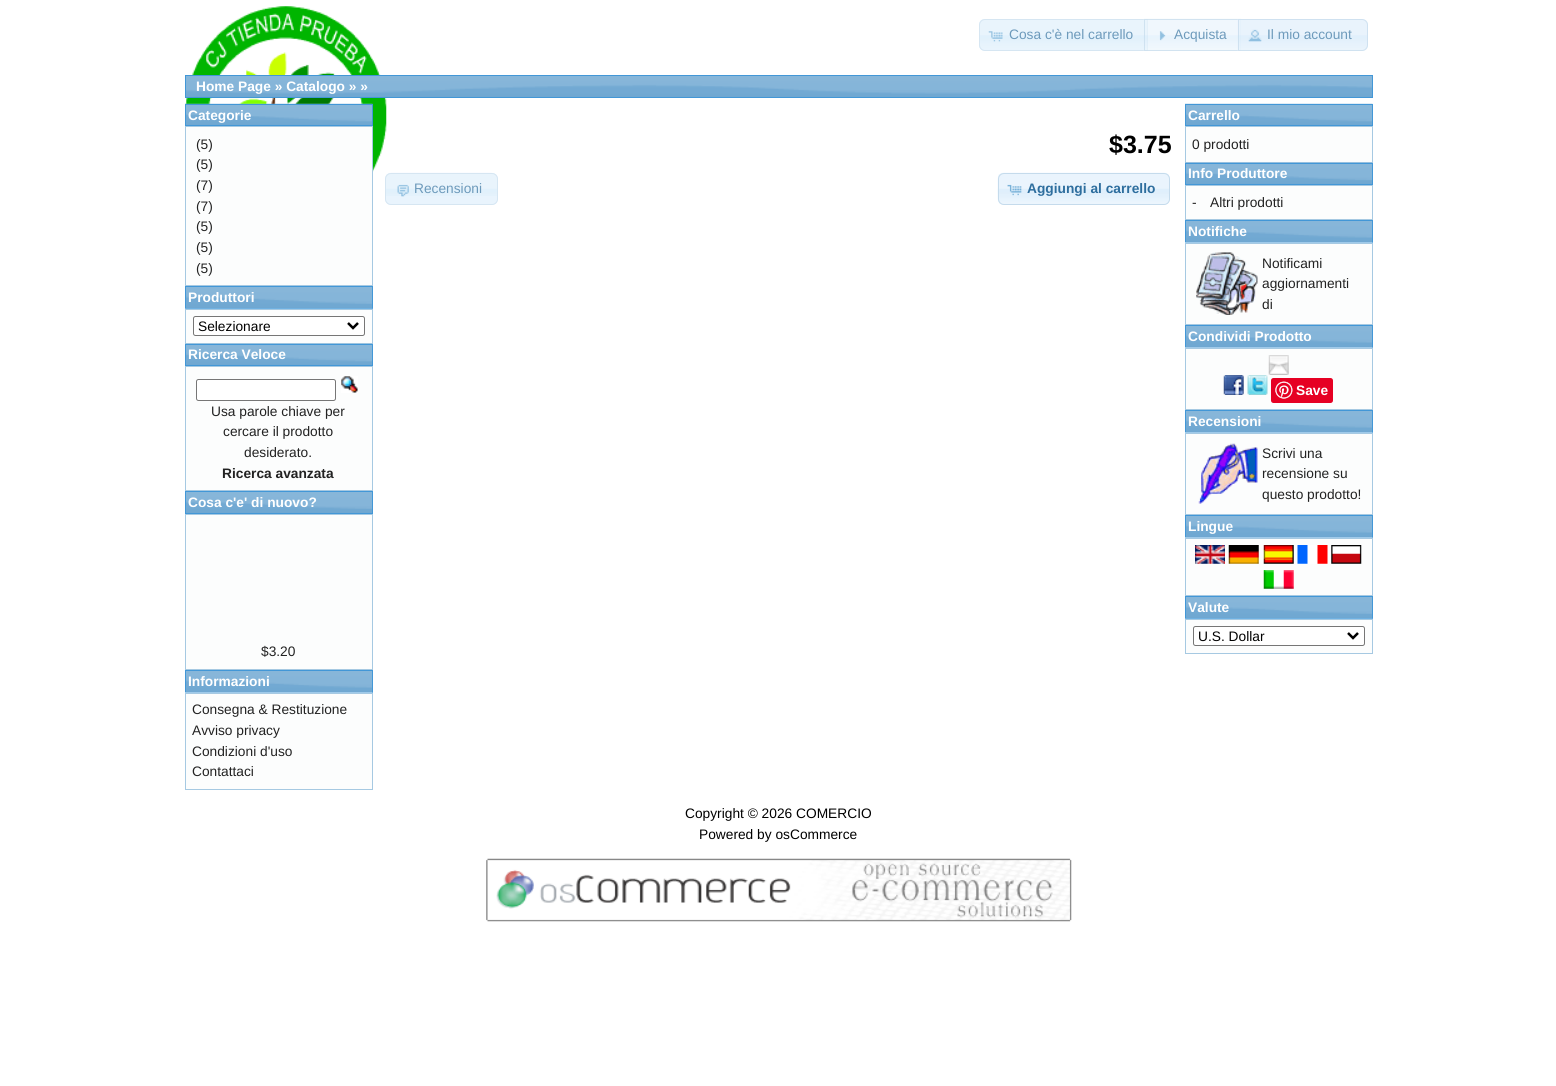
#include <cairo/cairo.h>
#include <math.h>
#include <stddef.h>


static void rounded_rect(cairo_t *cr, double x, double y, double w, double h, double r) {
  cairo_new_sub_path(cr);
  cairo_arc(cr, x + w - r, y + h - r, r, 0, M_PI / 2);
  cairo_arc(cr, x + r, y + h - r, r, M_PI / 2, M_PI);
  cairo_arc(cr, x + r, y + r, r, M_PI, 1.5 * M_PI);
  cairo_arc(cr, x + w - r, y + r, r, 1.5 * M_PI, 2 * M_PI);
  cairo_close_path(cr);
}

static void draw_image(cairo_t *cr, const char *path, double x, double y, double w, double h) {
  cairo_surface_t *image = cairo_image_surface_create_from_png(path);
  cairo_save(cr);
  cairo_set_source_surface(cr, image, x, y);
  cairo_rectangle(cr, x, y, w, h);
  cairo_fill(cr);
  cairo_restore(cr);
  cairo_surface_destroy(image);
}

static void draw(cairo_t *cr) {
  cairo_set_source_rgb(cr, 1, 1, 1);
  cairo_paint(cr);
  draw_image(cr, "images/1.png", 185, 6, 202, 166);
  cairo_set_source_rgb(cr, 233 / 255.0, 244 / 255.0, 253 / 255.0);
  cairo_new_path(cr);
  cairo_move_to(cr, 985, 19);
  cairo_line_to(cr, 1148, 19);
  cairo_line_to(cr, 1148, 51);
  cairo_line_to(cr, 985, 51);
  cairo_curve_to(cr, 981.5, 51, 979, 48.5, 979, 45);
  cairo_line_to(cr, 979, 25);
  cairo_curve_to(cr, 979, 21.5, 981.5, 19, 985, 19);
  cairo_close_path(cr);
  cairo_fill(cr);
  draw_image(cr, "images/2.png", 979, 19, 168, 29);
  cairo_new_path(cr);
  cairo_move_to(cr, 985, 19.5);
  cairo_line_to(cr, 1147.5, 19.5);
  cairo_line_to(cr, 1147.5, 50.5);
  cairo_line_to(cr, 985, 50.5);
  cairo_curve_to(cr, 982, 50.5, 979.5, 48, 979.5, 45);
  cairo_line_to(cr, 979.5, 25);
  cairo_curve_to(cr, 979.5, 22, 982, 19.5, 985, 19.5);
  cairo_close_path(cr);
  cairo_set_source_rgb(cr, 214 / 255.0, 230 / 255.0, 242 / 255.0);
  cairo_set_line_width(cr, 1);
  cairo_stroke(cr);
  draw_image(cr, "images/3.png", 988, 31, 15, 11);
  draw_image(cr, "images/4.png", 1143, 18, 99, 33);
  cairo_rectangle(cr, 1144.5, 19.5, 96, 31);
  cairo_set_source_rgba(cr, 197 / 255.0, 219 / 255.0, 236 / 255.0, 0.7);
  cairo_stroke(cr);
  draw_image(cr, "images/5.png", 1159, 31, 7, 10);
  cairo_set_source_rgba(cr, 223 / 255.0, 239 / 255.0, 252 / 255.0, 0.7);
  cairo_new_path(cr);
  cairo_move_to(cr, 1238, 19);
  cairo_line_to(cr, 1362, 19);
  cairo_curve_to(cr, 1365.5, 19, 1368, 21.5, 1368, 25);
  cairo_line_to(cr, 1368, 45);
  cairo_curve_to(cr, 1368, 48.5, 1365.5, 51, 1362, 51);
  cairo_line_to(cr, 1238, 51);
  cairo_close_path(cr);
  cairo_fill(cr);
  draw_image(cr, "images/6.png", 1237, 19, 130, 32);
  cairo_new_path(cr);
  cairo_move_to(cr, 1238.5, 19.5);
  cairo_line_to(cr, 1362, 19.5);
  cairo_curve_to(cr, 1365, 19.5, 1367.5, 22, 1367.5, 25);
  cairo_line_to(cr, 1367.5, 45);
  cairo_curve_to(cr, 1367.5, 48, 1365, 50.5, 1362, 50.5);
  cairo_line_to(cr, 1238.5, 50.5);
  cairo_close_path(cr);
  cairo_set_source_rgba(cr, 197 / 255.0, 219 / 255.0, 236 / 255.0, 0.7);
  cairo_stroke(cr);
  draw_image(cr, "images/7.png", 1248, 29, 14, 13);
  draw_image(cr, "images/8.png", 186, 76, 1186, 21);
  cairo_rectangle(cr, 185.5, 75.5, 1187, 22);
  cairo_set_source_rgb(cr, 66 / 255.0, 151 / 255.0, 215 / 255.0);
  cairo_stroke(cr);
  draw_image(cr, "images/9.png", 185, 103, 188, 22);
  cairo_rectangle(cr, 185.5, 104.5, 187, 21);
  cairo_stroke(cr);
  cairo_set_source_rgb(cr, 252 / 255.0, 253 / 255.0, 253 / 255.0);
  cairo_rectangle(cr, 185.5, 126.5, 187, 159);
  cairo_fill_preserve(cr);
  cairo_set_source_rgb(cr, 166 / 255.0, 201 / 255.0, 226 / 255.0);
  cairo_stroke(cr);
  draw_image(cr, "images/10.png", 186, 287, 186, 21);
  cairo_rectangle(cr, 185.5, 286.5, 187, 22);
  cairo_set_source_rgb(cr, 66 / 255.0, 151 / 255.0, 215 / 255.0);
  cairo_stroke(cr);
  cairo_set_source_rgb(cr, 252 / 255.0, 253 / 255.0, 253 / 255.0);
  cairo_rectangle(cr, 185.5, 309.5, 187, 34);
  cairo_fill_preserve(cr);
  cairo_set_source_rgb(cr, 166 / 255.0, 201 / 255.0, 226 / 255.0);
  cairo_stroke(cr);
  draw_image(cr, "images/11.png", 185, 308, 188, 1);
  cairo_set_source_rgb(cr, 1, 1, 1);
  rounded_rect(cr, 193.5, 316.5, 171, 19, 2);
  cairo_fill_preserve(cr);
  cairo_set_source_rgb(cr, 118 / 255.0, 118 / 255.0, 118 / 255.0);
  cairo_stroke(cr);
  cairo_new_path(cr);
  cairo_move_to(cr, 348, 323);
  cairo_line_to(cr, 353, 328);
  cairo_line_to(cr, 358, 323);
  cairo_set_source_rgb(cr, 0, 0, 0);
  cairo_set_line_width(cr, 2.5);
  cairo_stroke(cr);
  draw_image(cr, "images/12.png", 185, 343, 188, 22);
  cairo_rectangle(cr, 185.5, 344.5, 187, 21);
  cairo_set_source_rgb(cr, 66 / 255.0, 151 / 255.0, 215 / 255.0);
  cairo_set_line_width(cr, 1);
  cairo_stroke(cr);
  cairo_set_source_rgb(cr, 252 / 255.0, 253 / 255.0, 253 / 255.0);
  cairo_rectangle(cr, 185.5, 366.5, 187, 124);
  cairo_fill_preserve(cr);
  cairo_set_source_rgb(cr, 166 / 255.0, 201 / 255.0, 226 / 255.0);
  cairo_stroke(cr);
  cairo_set_source_rgb(cr, 1, 1, 1);
  rounded_rect(cr, 196.5, 379.5, 139, 21, 2);
  cairo_fill_preserve(cr);
  cairo_set_source_rgb(cr, 118 / 255.0, 118 / 255.0, 118 / 255.0);
  cairo_stroke(cr);
  draw_image(cr, "images/13.png", 341, 376, 17, 17);
  draw_image(cr, "images/14.png", 186, 492, 186, 21);
  cairo_rectangle(cr, 185.5, 491.5, 187, 22);
  cairo_set_source_rgb(cr, 66 / 255.0, 151 / 255.0, 215 / 255.0);
  cairo_stroke(cr);
  cairo_set_source_rgb(cr, 252 / 255.0, 253 / 255.0, 253 / 255.0);
  cairo_rectangle(cr, 185.5, 514.5, 187, 155);
  cairo_fill_preserve(cr);
  cairo_set_source_rgb(cr, 166 / 255.0, 201 / 255.0, 226 / 255.0);
  cairo_stroke(cr);
  draw_image(cr, "images/15.png", 186, 671, 186, 21);
  cairo_rectangle(cr, 185.5, 670.5, 187, 22);
  cairo_set_source_rgb(cr, 66 / 255.0, 151 / 255.0, 215 / 255.0);
  cairo_stroke(cr);
  cairo_set_source_rgb(cr, 252 / 255.0, 253 / 255.0, 253 / 255.0);
  cairo_rectangle(cr, 185.5, 693.5, 187, 96);
  cairo_fill_preserve(cr);
  cairo_set_source_rgb(cr, 166 / 255.0, 201 / 255.0, 226 / 255.0);
  cairo_stroke(cr);
  draw_image(cr, "images/16.png", 185, 692, 188, 1);
  cairo_set_source_rgb(cr, 233 / 255.0, 244 / 255.0, 253 / 255.0);
  rounded_rect(cr, 385, 173, 113, 32, 6);
  cairo_fill(cr);
  draw_image(cr, "images/17.png", 385, 172, 112, 24);
  rounded_rect(cr, 385.5, 173.5, 112, 31, 5.5);
  cairo_set_source_rgb(cr, 214 / 255.0, 230 / 255.0, 242 / 255.0);
  cairo_stroke(cr);
  draw_image(cr, "images/18.png", 397, 184, 12, 13);
  draw_image(cr, "images/19.png", 997, 172, 173, 33);
  rounded_rect(cr, 998.5, 173.5, 171, 31, 5.5);
  cairo_set_source_rgb(cr, 197 / 255.0, 219 / 255.0, 236 / 255.0);
  cairo_stroke(cr);
  draw_image(cr, "images/20.png", 1007, 184, 15, 12);
  draw_image(cr, "images/21.png", 1185, 103, 188, 22);
  cairo_rectangle(cr, 1185.5, 104.5, 187, 21);
  cairo_set_source_rgb(cr, 66 / 255.0, 151 / 255.0, 215 / 255.0);
  cairo_stroke(cr);
  cairo_set_source_rgb(cr, 252 / 255.0, 253 / 255.0, 253 / 255.0);
  cairo_rectangle(cr, 1185.5, 126.5, 187, 36);
  cairo_fill_preserve(cr);
  cairo_set_source_rgb(cr, 166 / 255.0, 201 / 255.0, 226 / 255.0);
  cairo_stroke(cr);
  draw_image(cr, "images/22.png", 1185, 162, 188, 22);
  cairo_rectangle(cr, 1185.5, 163.5, 187, 21);
  cairo_set_source_rgb(cr, 66 / 255.0, 151 / 255.0, 215 / 255.0);
  cairo_stroke(cr);
  cairo_set_source_rgb(cr, 252 / 255.0, 253 / 255.0, 253 / 255.0);
  cairo_rectangle(cr, 1185.5, 185.5, 187, 34);
  cairo_fill_preserve(cr);
  cairo_set_source_rgb(cr, 166 / 255.0, 201 / 255.0, 226 / 255.0);
  cairo_stroke(cr);
  draw_image(cr, "images/15.png", 1186, 221, 186, 21);
  cairo_rectangle(cr, 1185.5, 220.5, 187, 22);
  cairo_set_source_rgb(cr, 66 / 255.0, 151 / 255.0, 215 / 255.0);
  cairo_stroke(cr);
  cairo_set_source_rgb(cr, 252 / 255.0, 253 / 255.0, 253 / 255.0);
  cairo_rectangle(cr, 1185.5, 243.5, 187, 81);
  cairo_fill_preserve(cr);
  cairo_set_source_rgb(cr, 166 / 255.0, 201 / 255.0, 226 / 255.0);
  cairo_stroke(cr);
  draw_image(cr, "images/23.png", 1185, 242, 188, 1);
  draw_image(cr, "images/24.png", 1196, 252, 62, 63);
  draw_image(cr, "images/15.png", 1186, 326, 186, 21);
  cairo_rectangle(cr, 1185.5, 325.5, 187, 22);
  cairo_set_source_rgb(cr, 66 / 255.0, 151 / 255.0, 215 / 255.0);
  cairo_stroke(cr);
  cairo_set_source_rgb(cr, 252 / 255.0, 253 / 255.0, 253 / 255.0);
  cairo_rectangle(cr, 1185.5, 348.5, 187, 61);
  cairo_fill_preserve(cr);
  cairo_set_source_rgb(cr, 166 / 255.0, 201 / 255.0, 226 / 255.0);
  cairo_stroke(cr);
  draw_image(cr, "images/25.png", 1185, 347, 188, 1);
  draw_image(cr, "images/26.png", 1268, 355, 21, 20);
  draw_image(cr, "images/27.png", 1223, 375, 21, 20);
  draw_image(cr, "images/28.png", 1247, 375, 21, 20);
  cairo_set_source_rgb(cr, 230 / 255.0, 0, 35 / 255.0);
  rounded_rect(cr, 1271, 378, 62, 25, 2.5);
  cairo_fill(cr);
  draw_image(cr, "images/29.png", 1275, 381, 18, 18);
  draw_image(cr, "images/15.png", 1186, 411, 186, 21);
  cairo_rectangle(cr, 1185.5, 410.5, 187, 22);
  cairo_set_source_rgb(cr, 66 / 255.0, 151 / 255.0, 215 / 255.0);
  cairo_stroke(cr);
  cairo_set_source_rgb(cr, 252 / 255.0, 253 / 255.0, 253 / 255.0);
  cairo_rectangle(cr, 1185.5, 433.5, 187, 81);
  cairo_fill_preserve(cr);
  cairo_set_source_rgb(cr, 166 / 255.0, 201 / 255.0, 226 / 255.0);
  cairo_stroke(cr);
  draw_image(cr, "images/23.png", 1185, 432, 188, 1);
  draw_image(cr, "images/30.png", 1198, 443, 60, 61);
  draw_image(cr, "images/15.png", 1186, 516, 186, 21);
  cairo_rectangle(cr, 1185.5, 515.5, 187, 22);
  cairo_set_source_rgb(cr, 66 / 255.0, 151 / 255.0, 215 / 255.0);
  cairo_stroke(cr);
  cairo_set_source_rgb(cr, 252 / 255.0, 253 / 255.0, 253 / 255.0);
  cairo_rectangle(cr, 1185.5, 538.5, 187, 57);
  cairo_fill_preserve(cr);
  cairo_set_source_rgb(cr, 166 / 255.0, 201 / 255.0, 226 / 255.0);
  cairo_stroke(cr);
  draw_image(cr, "images/31.png", 1185, 537, 188, 1);
  draw_image(cr, "images/32.png", 1195, 545, 30, 19);
  draw_image(cr, "images/33.png", 1228, 545, 31, 19);
  draw_image(cr, "images/34.png", 1263, 545, 31, 19);
  draw_image(cr, "images/35.png", 1297, 545, 31, 19);
  draw_image(cr, "images/36.png", 1331, 545, 31, 19);
  draw_image(cr, "images/37.png", 1263, 570, 31, 19);
  draw_image(cr, "images/14.png", 1186, 597, 186, 21);
  cairo_rectangle(cr, 1185.5, 596.5, 187, 22);
  cairo_set_source_rgb(cr, 66 / 255.0, 151 / 255.0, 215 / 255.0);
  cairo_stroke(cr);
  cairo_set_source_rgb(cr, 252 / 255.0, 253 / 255.0, 253 / 255.0);
  cairo_rectangle(cr, 1185.5, 619.5, 187, 34);
  cairo_fill_preserve(cr);
  cairo_set_source_rgb(cr, 166 / 255.0, 201 / 255.0, 226 / 255.0);
  cairo_stroke(cr);
  draw_image(cr, "images/11.png", 1185, 618, 188, 1);
  cairo_set_source_rgb(cr, 1, 1, 1);
  rounded_rect(cr, 1193.5, 626.5, 171, 19, 2);
  cairo_fill_preserve(cr);
  cairo_set_source_rgb(cr, 118 / 255.0, 118 / 255.0, 118 / 255.0);
  cairo_stroke(cr);
  cairo_new_path(cr);
  cairo_move_to(cr, 1348, 633);
  cairo_line_to(cr, 1353, 638);
  cairo_line_to(cr, 1358, 633);
  cairo_set_source_rgb(cr, 0, 0, 0);
  cairo_set_line_width(cr, 2.5);
  cairo_stroke(cr);
  draw_image(cr, "images/38.png", 486, 858, 586, 64);
  cairo_select_font_face(cr, "Liberation Sans", CAIRO_FONT_SLANT_NORMAL, CAIRO_FONT_WEIGHT_NORMAL);
  cairo_set_font_size(cr, 13.75);
  cairo_set_source_rgb(cr, 109 / 255.0, 154 / 255.0, 187 / 255.0);
  cairo_move_to(cr, 1009, 39);
  cairo_show_text(cr, "Cosa c'è nel carrello");
  cairo_move_to(cr, 1174, 39);
  cairo_show_text(cr, "Acquista");
  cairo_move_to(cr, 1267, 39);
  cairo_show_text(cr, "Il mio account");
  cairo_select_font_face(cr, "Liberation Sans", CAIRO_FONT_SLANT_NORMAL, CAIRO_FONT_WEIGHT_BOLD);
  cairo_set_source_rgb(cr, 1, 1, 1);
  cairo_move_to(cr, 196, 91);
  cairo_show_text(cr, "Home Page » Catalogo » »");
  cairo_move_to(cr, 188, 120);
  cairo_show_text(cr, "Categorie");
  cairo_select_font_face(cr, "Liberation Sans", CAIRO_FONT_SLANT_NORMAL, CAIRO_FONT_WEIGHT_NORMAL);
  cairo_set_source_rgb(cr, 34 / 255.0, 34 / 255.0, 34 / 255.0);
  cairo_move_to(cr, 196, 149);
  cairo_show_text(cr, "(5)");
  cairo_move_to(cr, 196, 169);
  cairo_show_text(cr, "(5)");
  cairo_move_to(cr, 196, 190);
  cairo_show_text(cr, "(7)");
  cairo_move_to(cr, 196, 211);
  cairo_show_text(cr, "(7)");
  cairo_move_to(cr, 196, 231);
  cairo_show_text(cr, "(5)");
  cairo_move_to(cr, 196, 252);
  cairo_show_text(cr, "(5)");
  cairo_move_to(cr, 196, 273);
  cairo_show_text(cr, "(5)");
  cairo_select_font_face(cr, "Liberation Sans", CAIRO_FONT_SLANT_NORMAL, CAIRO_FONT_WEIGHT_BOLD);
  cairo_set_source_rgb(cr, 1, 1, 1);
  cairo_move_to(cr, 188, 302);
  cairo_show_text(cr, "Produttori");
  cairo_select_font_face(cr, "Liberation Sans", CAIRO_FONT_SLANT_NORMAL, CAIRO_FONT_WEIGHT_NORMAL);
  cairo_set_source_rgb(cr, 0, 0, 0);
  cairo_move_to(cr, 198, 331);
  cairo_show_text(cr, "Selezionare");
  cairo_select_font_face(cr, "Liberation Sans", CAIRO_FONT_SLANT_NORMAL, CAIRO_FONT_WEIGHT_BOLD);
  cairo_set_source_rgb(cr, 1, 1, 1);
  cairo_move_to(cr, 188, 359);
  cairo_show_text(cr, "Ricerca Veloce");
  cairo_select_font_face(cr, "Liberation Sans", CAIRO_FONT_SLANT_NORMAL, CAIRO_FONT_WEIGHT_NORMAL);
  cairo_set_source_rgb(cr, 34 / 255.0, 34 / 255.0, 34 / 255.0);
  cairo_move_to(cr, 211, 416);
  cairo_show_text(cr, "Usa parole chiave per");
  cairo_move_to(cr, 223, 436);
  cairo_show_text(cr, "cercare il prodotto");
  cairo_move_to(cr, 244, 457);
  cairo_show_text(cr, "desiderato.");
  cairo_select_font_face(cr, "Liberation Sans", CAIRO_FONT_SLANT_NORMAL, CAIRO_FONT_WEIGHT_BOLD);
  cairo_move_to(cr, 222, 478);
  cairo_show_text(cr, "Ricerca avanzata");
  cairo_set_source_rgb(cr, 1, 1, 1);
  cairo_move_to(cr, 188, 507);
  cairo_show_text(cr, "Cosa c'e' di nuovo?");
  cairo_select_font_face(cr, "Liberation Sans", CAIRO_FONT_SLANT_NORMAL, CAIRO_FONT_WEIGHT_NORMAL);
  cairo_set_source_rgb(cr, 34 / 255.0, 34 / 255.0, 34 / 255.0);
  cairo_move_to(cr, 261, 656);
  cairo_show_text(cr, "$3.20");
  cairo_select_font_face(cr, "Liberation Sans", CAIRO_FONT_SLANT_NORMAL, CAIRO_FONT_WEIGHT_BOLD);
  cairo_set_source_rgb(cr, 1, 1, 1);
  cairo_move_to(cr, 188, 686);
  cairo_show_text(cr, "Informazioni");
  cairo_select_font_face(cr, "Liberation Sans", CAIRO_FONT_SLANT_NORMAL, CAIRO_FONT_WEIGHT_NORMAL);
  cairo_set_source_rgb(cr, 34 / 255.0, 34 / 255.0, 34 / 255.0);
  cairo_move_to(cr, 192, 714);
  cairo_show_text(cr, "Consegna & Restituzione");
  cairo_move_to(cr, 192, 735);
  cairo_show_text(cr, "Avviso privacy");
  cairo_move_to(cr, 192, 756);
  cairo_show_text(cr, "Condizioni d'uso");
  cairo_move_to(cr, 192, 776);
  cairo_show_text(cr, "Contattaci");
  cairo_select_font_face(cr, "Liberation Sans", CAIRO_FONT_SLANT_NORMAL, CAIRO_FONT_WEIGHT_BOLD);
  cairo_set_font_size(cr, 25);
  cairo_set_source_rgb(cr, 0, 0, 0);
  cairo_move_to(cr, 1109, 153);
  cairo_show_text(cr, "$3.75");
  cairo_select_font_face(cr, "Liberation Sans", CAIRO_FONT_SLANT_NORMAL, CAIRO_FONT_WEIGHT_NORMAL);
  cairo_set_font_size(cr, 13.75);
  cairo_set_source_rgb(cr, 109 / 255.0, 154 / 255.0, 187 / 255.0);
  cairo_move_to(cr, 414, 193);
  cairo_show_text(cr, "Recensioni");
  cairo_select_font_face(cr, "Liberation Sans", CAIRO_FONT_SLANT_NORMAL, CAIRO_FONT_WEIGHT_BOLD);
  cairo_set_source_rgb(cr, 46 / 255.0, 110 / 255.0, 158 / 255.0);
  cairo_move_to(cr, 1027, 193);
  cairo_show_text(cr, "Aggiungi al carrello");
  cairo_set_source_rgb(cr, 1, 1, 1);
  cairo_move_to(cr, 1188, 120);
  cairo_show_text(cr, "Carrello");
  cairo_select_font_face(cr, "Liberation Sans", CAIRO_FONT_SLANT_NORMAL, CAIRO_FONT_WEIGHT_NORMAL);
  cairo_set_source_rgb(cr, 34 / 255.0, 34 / 255.0, 34 / 255.0);
  cairo_move_to(cr, 1192, 149);
  cairo_show_text(cr, "0 prodotti");
  cairo_select_font_face(cr, "Liberation Sans", CAIRO_FONT_SLANT_NORMAL, CAIRO_FONT_WEIGHT_BOLD);
  cairo_set_source_rgb(cr, 1, 1, 1);
  cairo_move_to(cr, 1188, 178);
  cairo_show_text(cr, "Info Produttore");
  cairo_select_font_face(cr, "Liberation Sans", CAIRO_FONT_SLANT_NORMAL, CAIRO_FONT_WEIGHT_NORMAL);
  cairo_set_source_rgb(cr, 34 / 255.0, 34 / 255.0, 34 / 255.0);
  cairo_move_to(cr, 1192, 207);
  cairo_show_text(cr, "-");
  cairo_move_to(cr, 1210, 207);
  cairo_show_text(cr, "Altri prodotti");
  cairo_select_font_face(cr, "Liberation Sans", CAIRO_FONT_SLANT_NORMAL, CAIRO_FONT_WEIGHT_BOLD);
  cairo_set_source_rgb(cr, 1, 1, 1);
  cairo_move_to(cr, 1188, 236);
  cairo_show_text(cr, "Notifiche");
  cairo_select_font_face(cr, "Liberation Sans", CAIRO_FONT_SLANT_NORMAL, CAIRO_FONT_WEIGHT_NORMAL);
  cairo_set_source_rgb(cr, 34 / 255.0, 34 / 255.0, 34 / 255.0);
  cairo_move_to(cr, 1262, 268);
  cairo_show_text(cr, "Notificami");
  cairo_move_to(cr, 1262, 288);
  cairo_show_text(cr, "aggiornamenti");
  cairo_move_to(cr, 1262, 309);
  cairo_show_text(cr, "di");
  cairo_select_font_face(cr, "Liberation Sans", CAIRO_FONT_SLANT_NORMAL, CAIRO_FONT_WEIGHT_BOLD);
  cairo_set_source_rgb(cr, 1, 1, 1);
  cairo_move_to(cr, 1188, 341);
  cairo_show_text(cr, "Condividi Prodotto");
  cairo_move_to(cr, 1296, 395);
  cairo_show_text(cr, "Save");
  cairo_move_to(cr, 1188, 426);
  cairo_show_text(cr, "Recensioni");
  cairo_select_font_face(cr, "Liberation Sans", CAIRO_FONT_SLANT_NORMAL, CAIRO_FONT_WEIGHT_NORMAL);
  cairo_set_source_rgb(cr, 34 / 255.0, 34 / 255.0, 34 / 255.0);
  cairo_move_to(cr, 1262, 458);
  cairo_show_text(cr, "Scrivi una");
  cairo_move_to(cr, 1262, 478);
  cairo_show_text(cr, "recensione su");
  cairo_move_to(cr, 1262, 499);
  cairo_show_text(cr, "questo prodotto!");
  cairo_select_font_face(cr, "Liberation Sans", CAIRO_FONT_SLANT_NORMAL, CAIRO_FONT_WEIGHT_BOLD);
  cairo_set_source_rgb(cr, 1, 1, 1);
  cairo_move_to(cr, 1188, 531);
  cairo_show_text(cr, "Lingue");
  cairo_move_to(cr, 1188, 612);
  cairo_show_text(cr, "Valute");
  cairo_select_font_face(cr, "Liberation Sans", CAIRO_FONT_SLANT_NORMAL, CAIRO_FONT_WEIGHT_NORMAL);
  cairo_set_source_rgb(cr, 0, 0, 0);
  cairo_move_to(cr, 1198, 641);
  cairo_show_text(cr, "U.S. Dollar");
  cairo_move_to(cr, 685, 818);
  cairo_show_text(cr, "Copyright © 2026 COMERCIO");
  cairo_move_to(cr, 699, 839);
  cairo_show_text(cr, "Powered by osCommerce");
}

int main(void) {
  cairo_surface_t *surface = cairo_image_surface_create(CAIRO_FORMAT_RGB24, 1556, 1086);
  cairo_t *cr = cairo_create(surface);
  cairo_font_options_t *options = cairo_font_options_create();
  cairo_font_options_set_hint_metrics(options, CAIRO_HINT_METRICS_OFF);
  cairo_font_options_set_hint_style(options, CAIRO_HINT_STYLE_NONE);
  cairo_set_font_options(cr, options);
  cairo_set_miter_limit(cr, 4);
  draw(cr);
  cairo_surface_write_to_png(surface, "out.png");
  cairo_font_options_destroy(options);
  cairo_destroy(cr);
  cairo_surface_destroy(surface);
  return 0;
}
